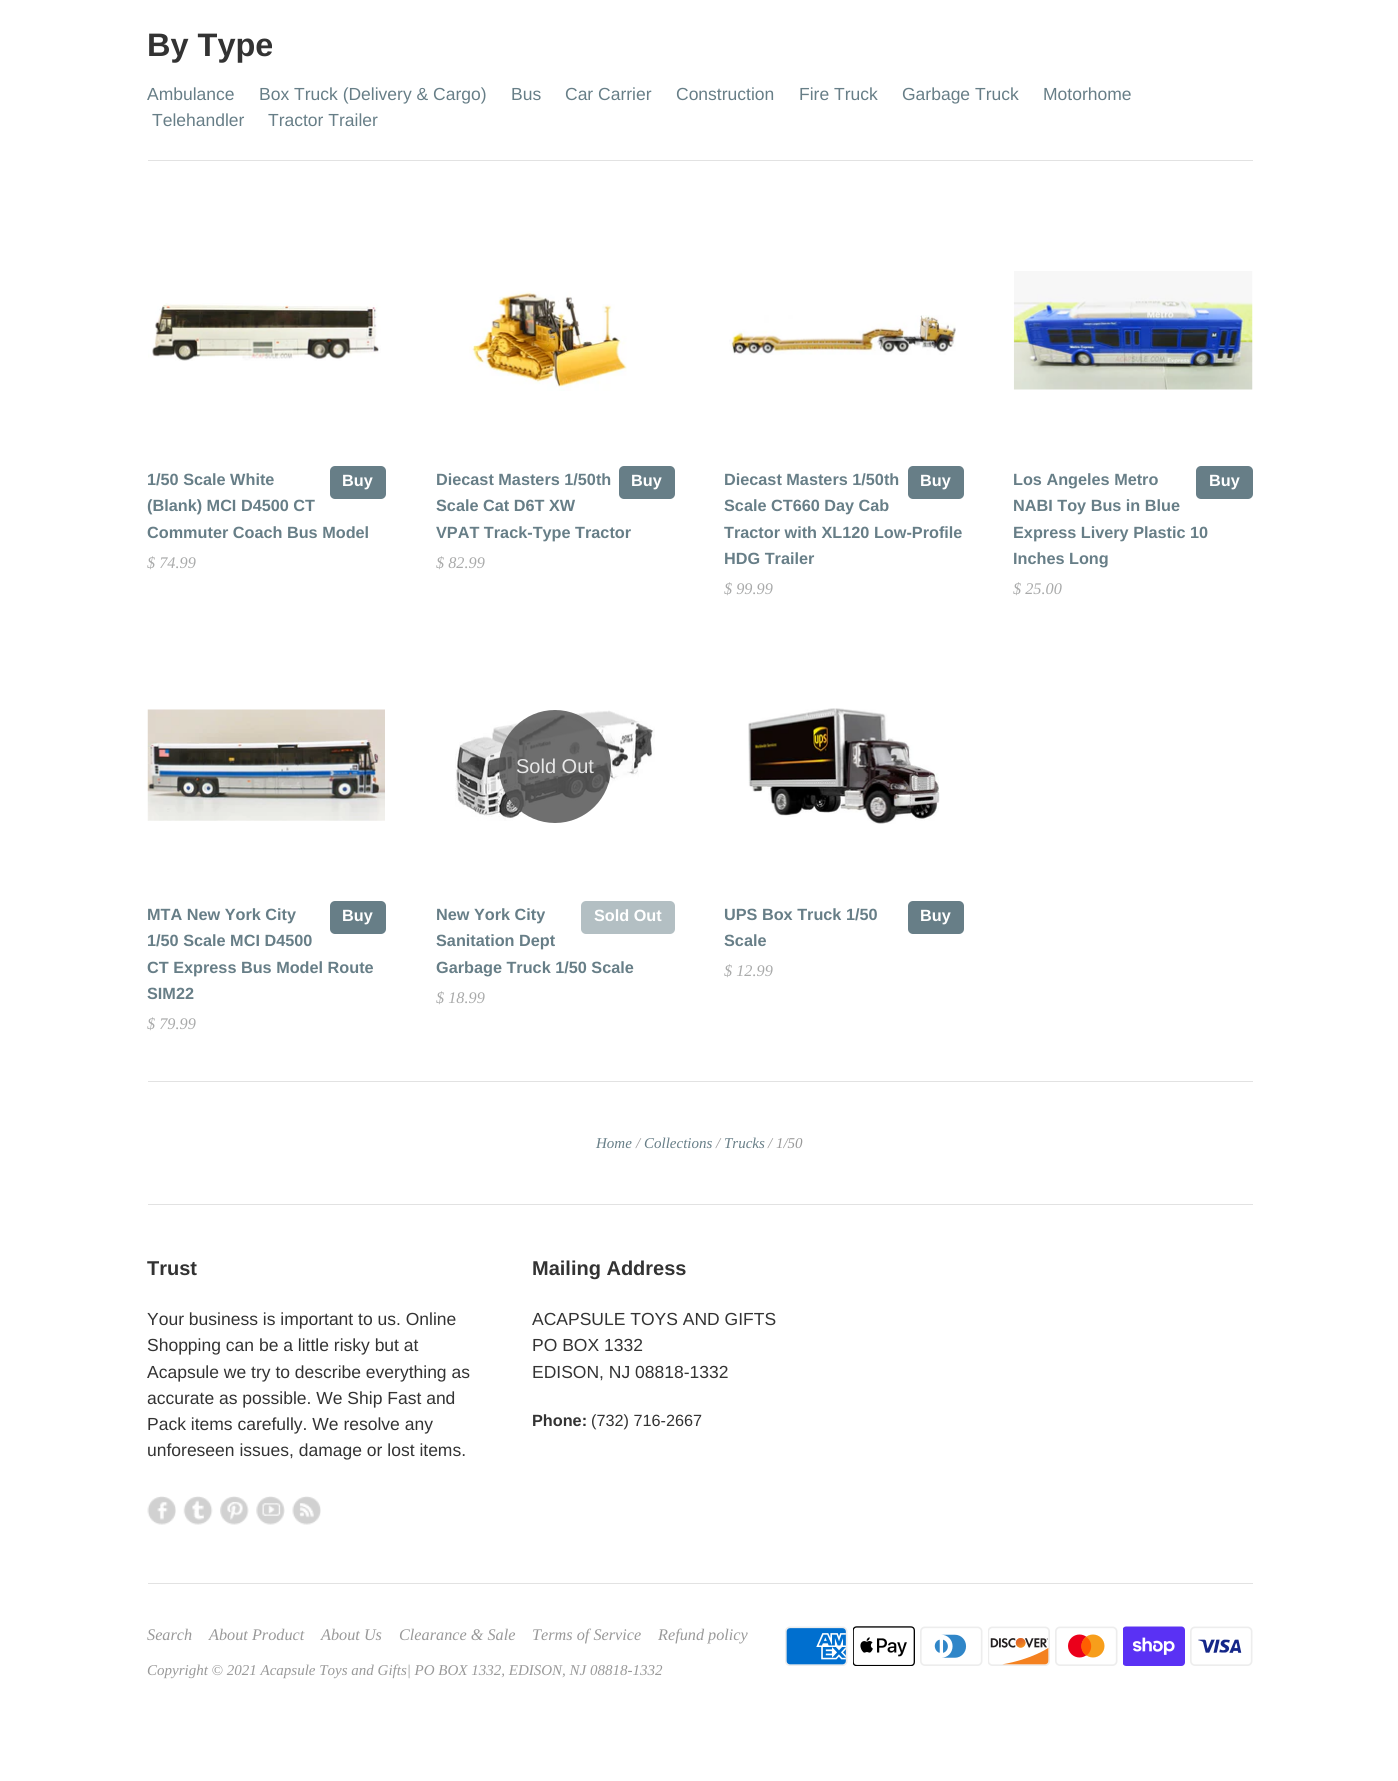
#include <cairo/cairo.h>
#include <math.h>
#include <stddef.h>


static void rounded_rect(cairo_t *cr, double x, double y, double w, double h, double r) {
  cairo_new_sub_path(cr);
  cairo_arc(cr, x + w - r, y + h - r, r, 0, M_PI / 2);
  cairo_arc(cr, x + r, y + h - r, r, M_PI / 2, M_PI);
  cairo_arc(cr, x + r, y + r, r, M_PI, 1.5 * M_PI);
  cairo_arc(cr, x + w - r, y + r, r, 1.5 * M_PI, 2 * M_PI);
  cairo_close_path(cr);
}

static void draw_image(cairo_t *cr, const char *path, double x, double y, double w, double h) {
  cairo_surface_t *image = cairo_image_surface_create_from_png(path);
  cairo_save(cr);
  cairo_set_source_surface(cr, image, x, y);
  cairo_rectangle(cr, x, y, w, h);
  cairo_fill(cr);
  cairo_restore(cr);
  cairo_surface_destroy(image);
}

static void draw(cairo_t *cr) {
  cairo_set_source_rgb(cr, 1, 1, 1);
  cairo_paint(cr);
  cairo_set_source_rgb(cr, 226 / 255.0, 226 / 255.0, 226 / 255.0);
  cairo_rectangle(cr, 148, 160, 1105, 1);
  cairo_fill(cr);
  draw_image(cr, "images/1.png", 148, 303, 233, 58);
  cairo_set_source_rgb(cr, 103 / 255.0, 126 / 255.0, 135 / 255.0);
  rounded_rect(cr, 330, 466, 56, 33, 5);
  cairo_fill(cr);
  draw_image(cr, "images/2.png", 469, 291, 158, 100);
  rounded_rect(cr, 619, 466, 56, 33, 5);
  cairo_fill(cr);
  draw_image(cr, "images/3.png", 729, 315, 227, 40);
  rounded_rect(cr, 908, 466, 56, 33, 5);
  cairo_fill(cr);
  draw_image(cr, "images/4.png", 1013, 271, 240, 119);
  rounded_rect(cr, 1196, 466, 57, 33, 5);
  cairo_fill(cr);
  draw_image(cr, "images/5.png", 147, 709, 238, 112);
  rounded_rect(cr, 330, 901, 56, 33, 5);
  cairo_fill(cr);
  draw_image(cr, "images/6.png", 455, 710, 200, 111);
  cairo_set_source_rgba(cr, 85 / 255.0, 85 / 255.0, 85 / 255.0, 0.84);
  rounded_rect(cr, 499, 710, 112, 113, 56);
  cairo_fill(cr);
  cairo_set_source_rgb(cr, 179 / 255.0, 191 / 255.0, 195 / 255.0);
  rounded_rect(cr, 581, 901, 94, 33, 5);
  cairo_fill(cr);
  draw_image(cr, "images/7.png", 748, 708, 192, 116);
  cairo_set_source_rgb(cr, 103 / 255.0, 126 / 255.0, 135 / 255.0);
  rounded_rect(cr, 908, 901, 56, 33, 5);
  cairo_fill(cr);
  cairo_set_source_rgb(cr, 226 / 255.0, 226 / 255.0, 226 / 255.0);
  cairo_rectangle(cr, 148, 1081, 1105, 1);
  cairo_fill(cr);
  cairo_rectangle(cr, 148, 1204, 1105, 1);
  cairo_fill(cr);
  draw_image(cr, "images/8.png", 147, 1496, 29, 29);
  draw_image(cr, "images/9.png", 183, 1496, 30, 29);
  draw_image(cr, "images/10.png", 220, 1496, 29, 29);
  draw_image(cr, "images/11.png", 256, 1496, 29, 29);
  draw_image(cr, "images/12.png", 292, 1496, 29, 29);
  cairo_rectangle(cr, 148, 1583, 1105, 1);
  cairo_fill(cr);
  draw_image(cr, "images/13.png", 785, 1626, 63, 40);
  draw_image(cr, "images/14.png", 853, 1626, 62, 40);
  draw_image(cr, "images/15.png", 920, 1626, 63, 40);
  draw_image(cr, "images/16.png", 988, 1626, 62, 40);
  draw_image(cr, "images/17.png", 1055, 1626, 63, 40);
  draw_image(cr, "images/18.png", 1123, 1626, 62, 40);
  draw_image(cr, "images/19.png", 1190, 1626, 63, 40);
  cairo_select_font_face(cr, "Liberation Sans", CAIRO_FONT_SLANT_NORMAL, CAIRO_FONT_WEIGHT_BOLD);
  cairo_set_font_size(cr, 32.5);
  cairo_set_source_rgb(cr, 51 / 255.0, 51 / 255.0, 51 / 255.0);
  cairo_move_to(cr, 147, 56);
  cairo_show_text(cr, "By Type");
  cairo_select_font_face(cr, "Liberation Sans", CAIRO_FONT_SLANT_NORMAL, CAIRO_FONT_WEIGHT_NORMAL);
  cairo_set_font_size(cr, 17.5);
  cairo_set_source_rgb(cr, 103 / 255.0, 126 / 255.0, 135 / 255.0);
  cairo_move_to(cr, 147, 100);
  cairo_show_text(cr, "Ambulance");
  cairo_move_to(cr, 259, 100);
  cairo_show_text(cr, "Box Truck (Delivery & Cargo)");
  cairo_move_to(cr, 511, 100);
  cairo_show_text(cr, "Bus");
  cairo_move_to(cr, 565, 100);
  cairo_show_text(cr, "Car Carrier");
  cairo_move_to(cr, 676, 100);
  cairo_show_text(cr, "Construction");
  cairo_move_to(cr, 799, 100);
  cairo_show_text(cr, "Fire Truck");
  cairo_move_to(cr, 902, 100);
  cairo_show_text(cr, "Garbage Truck");
  cairo_move_to(cr, 1043, 100);
  cairo_show_text(cr, "Motorhome");
  cairo_move_to(cr, 152, 126);
  cairo_show_text(cr, "Telehandler");
  cairo_move_to(cr, 268, 126);
  cairo_show_text(cr, "Tractor Trailer");
  cairo_select_font_face(cr, "Liberation Sans", CAIRO_FONT_SLANT_NORMAL, CAIRO_FONT_WEIGHT_BOLD);
  cairo_set_font_size(cr, 16.25);
  cairo_move_to(cr, 147, 485);
  cairo_show_text(cr, "1/50 Scale White");
  cairo_move_to(cr, 147, 511);
  cairo_show_text(cr, "(Blank) MCI D4500 CT");
  cairo_move_to(cr, 147, 538);
  cairo_show_text(cr, "Commuter Coach Bus Model");
  cairo_select_font_face(cr, "Liberation Serif", CAIRO_FONT_SLANT_ITALIC, CAIRO_FONT_WEIGHT_NORMAL);
  cairo_set_source_rgb(cr, 169 / 255.0, 170 / 255.0, 170 / 255.0);
  cairo_move_to(cr, 147, 568);
  cairo_show_text(cr, "$ 74.99");
  cairo_select_font_face(cr, "Liberation Sans", CAIRO_FONT_SLANT_NORMAL, CAIRO_FONT_WEIGHT_BOLD);
  cairo_set_source_rgb(cr, 1, 1, 1);
  cairo_move_to(cr, 342, 486);
  cairo_show_text(cr, "Buy");
  cairo_set_source_rgb(cr, 103 / 255.0, 126 / 255.0, 135 / 255.0);
  cairo_move_to(cr, 436, 485);
  cairo_show_text(cr, "Diecast Masters 1/50th");
  cairo_move_to(cr, 436, 511);
  cairo_show_text(cr, "Scale Cat D6T XW");
  cairo_move_to(cr, 436, 538);
  cairo_show_text(cr, "VPAT Track-Type Tractor");
  cairo_select_font_face(cr, "Liberation Serif", CAIRO_FONT_SLANT_ITALIC, CAIRO_FONT_WEIGHT_NORMAL);
  cairo_set_source_rgb(cr, 169 / 255.0, 170 / 255.0, 170 / 255.0);
  cairo_move_to(cr, 436, 568);
  cairo_show_text(cr, "$ 82.99");
  cairo_select_font_face(cr, "Liberation Sans", CAIRO_FONT_SLANT_NORMAL, CAIRO_FONT_WEIGHT_BOLD);
  cairo_set_source_rgb(cr, 1, 1, 1);
  cairo_move_to(cr, 631, 486);
  cairo_show_text(cr, "Buy");
  cairo_set_source_rgb(cr, 103 / 255.0, 126 / 255.0, 135 / 255.0);
  cairo_move_to(cr, 724, 485);
  cairo_show_text(cr, "Diecast Masters 1/50th");
  cairo_move_to(cr, 724, 511);
  cairo_show_text(cr, "Scale CT660 Day Cab");
  cairo_move_to(cr, 724, 538);
  cairo_show_text(cr, "Tractor with XL120 Low-Profile");
  cairo_move_to(cr, 724, 564);
  cairo_show_text(cr, "HDG Trailer");
  cairo_select_font_face(cr, "Liberation Serif", CAIRO_FONT_SLANT_ITALIC, CAIRO_FONT_WEIGHT_NORMAL);
  cairo_set_source_rgb(cr, 169 / 255.0, 170 / 255.0, 170 / 255.0);
  cairo_move_to(cr, 724, 594);
  cairo_show_text(cr, "$ 99.99");
  cairo_select_font_face(cr, "Liberation Sans", CAIRO_FONT_SLANT_NORMAL, CAIRO_FONT_WEIGHT_BOLD);
  cairo_set_source_rgb(cr, 1, 1, 1);
  cairo_move_to(cr, 920, 486);
  cairo_show_text(cr, "Buy");
  cairo_set_source_rgb(cr, 103 / 255.0, 126 / 255.0, 135 / 255.0);
  cairo_move_to(cr, 1013, 485);
  cairo_show_text(cr, "Los Angeles Metro");
  cairo_move_to(cr, 1013, 511);
  cairo_show_text(cr, "NABI Toy Bus in Blue");
  cairo_move_to(cr, 1013, 538);
  cairo_show_text(cr, "Express Livery Plastic 10");
  cairo_move_to(cr, 1013, 564);
  cairo_show_text(cr, "Inches Long");
  cairo_select_font_face(cr, "Liberation Serif", CAIRO_FONT_SLANT_ITALIC, CAIRO_FONT_WEIGHT_NORMAL);
  cairo_set_source_rgb(cr, 169 / 255.0, 170 / 255.0, 170 / 255.0);
  cairo_move_to(cr, 1013, 594);
  cairo_show_text(cr, "$ 25.00");
  cairo_select_font_face(cr, "Liberation Sans", CAIRO_FONT_SLANT_NORMAL, CAIRO_FONT_WEIGHT_BOLD);
  cairo_set_source_rgb(cr, 1, 1, 1);
  cairo_move_to(cr, 1209, 486);
  cairo_show_text(cr, "Buy");
  cairo_set_source_rgb(cr, 103 / 255.0, 126 / 255.0, 135 / 255.0);
  cairo_move_to(cr, 147, 920);
  cairo_show_text(cr, "MTA New York City");
  cairo_move_to(cr, 147, 946);
  cairo_show_text(cr, "1/50 Scale MCI D4500");
  cairo_move_to(cr, 147, 973);
  cairo_show_text(cr, "CT Express Bus Model Route");
  cairo_move_to(cr, 147, 999);
  cairo_show_text(cr, "SIM22");
  cairo_select_font_face(cr, "Liberation Serif", CAIRO_FONT_SLANT_ITALIC, CAIRO_FONT_WEIGHT_NORMAL);
  cairo_set_source_rgb(cr, 169 / 255.0, 170 / 255.0, 170 / 255.0);
  cairo_move_to(cr, 147, 1029);
  cairo_show_text(cr, "$ 79.99");
  cairo_select_font_face(cr, "Liberation Sans", CAIRO_FONT_SLANT_NORMAL, CAIRO_FONT_WEIGHT_BOLD);
  cairo_set_source_rgb(cr, 1, 1, 1);
  cairo_move_to(cr, 342, 921);
  cairo_show_text(cr, "Buy");
  cairo_select_font_face(cr, "Liberation Sans", CAIRO_FONT_SLANT_NORMAL, CAIRO_FONT_WEIGHT_NORMAL);
  cairo_set_font_size(cr, 20);
  cairo_set_source_rgb(cr, 231 / 255.0, 231 / 255.0, 231 / 255.0);
  cairo_move_to(cr, 516, 773);
  cairo_show_text(cr, "Sold Out");
  cairo_select_font_face(cr, "Liberation Sans", CAIRO_FONT_SLANT_NORMAL, CAIRO_FONT_WEIGHT_BOLD);
  cairo_set_font_size(cr, 16.25);
  cairo_set_source_rgb(cr, 103 / 255.0, 126 / 255.0, 135 / 255.0);
  cairo_move_to(cr, 436, 920);
  cairo_show_text(cr, "New York City");
  cairo_move_to(cr, 436, 946);
  cairo_show_text(cr, "Sanitation Dept");
  cairo_move_to(cr, 436, 973);
  cairo_show_text(cr, "Garbage Truck 1/50 Scale");
  cairo_select_font_face(cr, "Liberation Serif", CAIRO_FONT_SLANT_ITALIC, CAIRO_FONT_WEIGHT_NORMAL);
  cairo_set_source_rgb(cr, 169 / 255.0, 170 / 255.0, 170 / 255.0);
  cairo_move_to(cr, 436, 1003);
  cairo_show_text(cr, "$ 18.99");
  cairo_select_font_face(cr, "Liberation Sans", CAIRO_FONT_SLANT_NORMAL, CAIRO_FONT_WEIGHT_BOLD);
  cairo_set_source_rgb(cr, 1, 1, 1);
  cairo_move_to(cr, 594, 921);
  cairo_show_text(cr, "Sold Out");
  cairo_set_source_rgb(cr, 103 / 255.0, 126 / 255.0, 135 / 255.0);
  cairo_move_to(cr, 724, 920);
  cairo_show_text(cr, "UPS Box Truck 1/50");
  cairo_move_to(cr, 724, 946);
  cairo_show_text(cr, "Scale");
  cairo_select_font_face(cr, "Liberation Serif", CAIRO_FONT_SLANT_ITALIC, CAIRO_FONT_WEIGHT_NORMAL);
  cairo_set_source_rgb(cr, 169 / 255.0, 170 / 255.0, 170 / 255.0);
  cairo_move_to(cr, 724, 976);
  cairo_show_text(cr, "$ 12.99");
  cairo_select_font_face(cr, "Liberation Sans", CAIRO_FONT_SLANT_NORMAL, CAIRO_FONT_WEIGHT_BOLD);
  cairo_set_source_rgb(cr, 1, 1, 1);
  cairo_move_to(cr, 920, 921);
  cairo_show_text(cr, "Buy");
  cairo_select_font_face(cr, "Liberation Serif", CAIRO_FONT_SLANT_ITALIC, CAIRO_FONT_WEIGHT_NORMAL);
  cairo_set_font_size(cr, 15);
  cairo_set_source_rgb(cr, 103 / 255.0, 126 / 255.0, 135 / 255.0);
  cairo_move_to(cr, 596, 1148);
  cairo_show_text(cr, "Home");
  cairo_set_source_rgb(cr, 153 / 255.0, 153 / 255.0, 153 / 255.0);
  cairo_move_to(cr, 636, 1148);
  cairo_show_text(cr, "/");
  cairo_set_source_rgb(cr, 103 / 255.0, 126 / 255.0, 135 / 255.0);
  cairo_move_to(cr, 644, 1148);
  cairo_show_text(cr, "Collections");
  cairo_set_source_rgb(cr, 153 / 255.0, 153 / 255.0, 153 / 255.0);
  cairo_move_to(cr, 716, 1148);
  cairo_show_text(cr, "/");
  cairo_set_source_rgb(cr, 103 / 255.0, 126 / 255.0, 135 / 255.0);
  cairo_move_to(cr, 724, 1148);
  cairo_show_text(cr, "Trucks");
  cairo_set_source_rgb(cr, 153 / 255.0, 153 / 255.0, 153 / 255.0);
  cairo_move_to(cr, 768, 1148);
  cairo_show_text(cr, "/ 1/50");
  cairo_select_font_face(cr, "Liberation Sans", CAIRO_FONT_SLANT_NORMAL, CAIRO_FONT_WEIGHT_BOLD);
  cairo_set_font_size(cr, 20);
  cairo_set_source_rgb(cr, 51 / 255.0, 51 / 255.0, 51 / 255.0);
  cairo_move_to(cr, 147, 1275);
  cairo_show_text(cr, "Trust");
  cairo_select_font_face(cr, "Liberation Sans", CAIRO_FONT_SLANT_NORMAL, CAIRO_FONT_WEIGHT_NORMAL);
  cairo_set_font_size(cr, 17.5);
  cairo_move_to(cr, 147, 1325);
  cairo_show_text(cr, "Your business is important to us. Online");
  cairo_move_to(cr, 147, 1351);
  cairo_show_text(cr, "Shopping can be a little risky but at");
  cairo_move_to(cr, 147, 1378);
  cairo_show_text(cr, "Acapsule we try to describe everything as");
  cairo_move_to(cr, 147, 1404);
  cairo_show_text(cr, "accurate as possible. We Ship Fast and");
  cairo_move_to(cr, 147, 1430);
  cairo_show_text(cr, "Pack items carefully. We resolve any");
  cairo_move_to(cr, 147, 1456);
  cairo_show_text(cr, "unforeseen issues, damage or lost items.");
  cairo_select_font_face(cr, "Liberation Sans", CAIRO_FONT_SLANT_NORMAL, CAIRO_FONT_WEIGHT_BOLD);
  cairo_set_font_size(cr, 20);
  cairo_move_to(cr, 532, 1275);
  cairo_show_text(cr, "Mailing Address");
  cairo_select_font_face(cr, "Liberation Sans", CAIRO_FONT_SLANT_NORMAL, CAIRO_FONT_WEIGHT_NORMAL);
  cairo_set_font_size(cr, 17.5);
  cairo_move_to(cr, 532, 1325);
  cairo_show_text(cr, "ACAPSULE TOYS AND GIFTS");
  cairo_move_to(cr, 532, 1351);
  cairo_show_text(cr, "PO BOX 1332");
  cairo_move_to(cr, 532, 1378);
  cairo_show_text(cr, "EDISON, NJ 08818-1332");
  cairo_select_font_face(cr, "Liberation Sans", CAIRO_FONT_SLANT_NORMAL, CAIRO_FONT_WEIGHT_BOLD);
  cairo_set_font_size(cr, 16.25);
  cairo_move_to(cr, 532, 1426);
  cairo_show_text(cr, "Phone:");
  cairo_select_font_face(cr, "Liberation Sans", CAIRO_FONT_SLANT_NORMAL, CAIRO_FONT_WEIGHT_NORMAL);
  cairo_move_to(cr, 591, 1426);
  cairo_show_text(cr, "(732) 716-2667");
  cairo_select_font_face(cr, "Liberation Serif", CAIRO_FONT_SLANT_ITALIC, CAIRO_FONT_WEIGHT_NORMAL);
  cairo_set_source_rgb(cr, 153 / 255.0, 153 / 255.0, 153 / 255.0);
  cairo_move_to(cr, 147, 1640);
  cairo_show_text(cr, "Search");
  cairo_move_to(cr, 209, 1640);
  cairo_show_text(cr, "About Product");
  cairo_move_to(cr, 321, 1640);
  cairo_show_text(cr, "About Us");
  cairo_move_to(cr, 399, 1640);
  cairo_show_text(cr, "Clearance & Sale");
  cairo_move_to(cr, 532, 1640);
  cairo_show_text(cr, "Terms of Service");
  cairo_move_to(cr, 658, 1640);
  cairo_show_text(cr, "Refund policy");
  cairo_set_font_size(cr, 15);
  cairo_move_to(cr, 147, 1675);
  cairo_show_text(cr, "Copyright © 2021 Acapsule Toys and Gifts| PO BOX 1332, EDISON, NJ 08818-1332");
}

int main(void) {
  cairo_surface_t *surface = cairo_image_surface_create(CAIRO_FORMAT_RGB24, 1398, 1781);
  cairo_t *cr = cairo_create(surface);
  cairo_font_options_t *options = cairo_font_options_create();
  cairo_font_options_set_hint_metrics(options, CAIRO_HINT_METRICS_OFF);
  cairo_font_options_set_hint_style(options, CAIRO_HINT_STYLE_NONE);
  cairo_set_font_options(cr, options);
  cairo_set_miter_limit(cr, 4);
  draw(cr);
  cairo_surface_write_to_png(surface, "out.png");
  cairo_font_options_destroy(options);
  cairo_destroy(cr);
  cairo_surface_destroy(surface);
  return 0;
}
